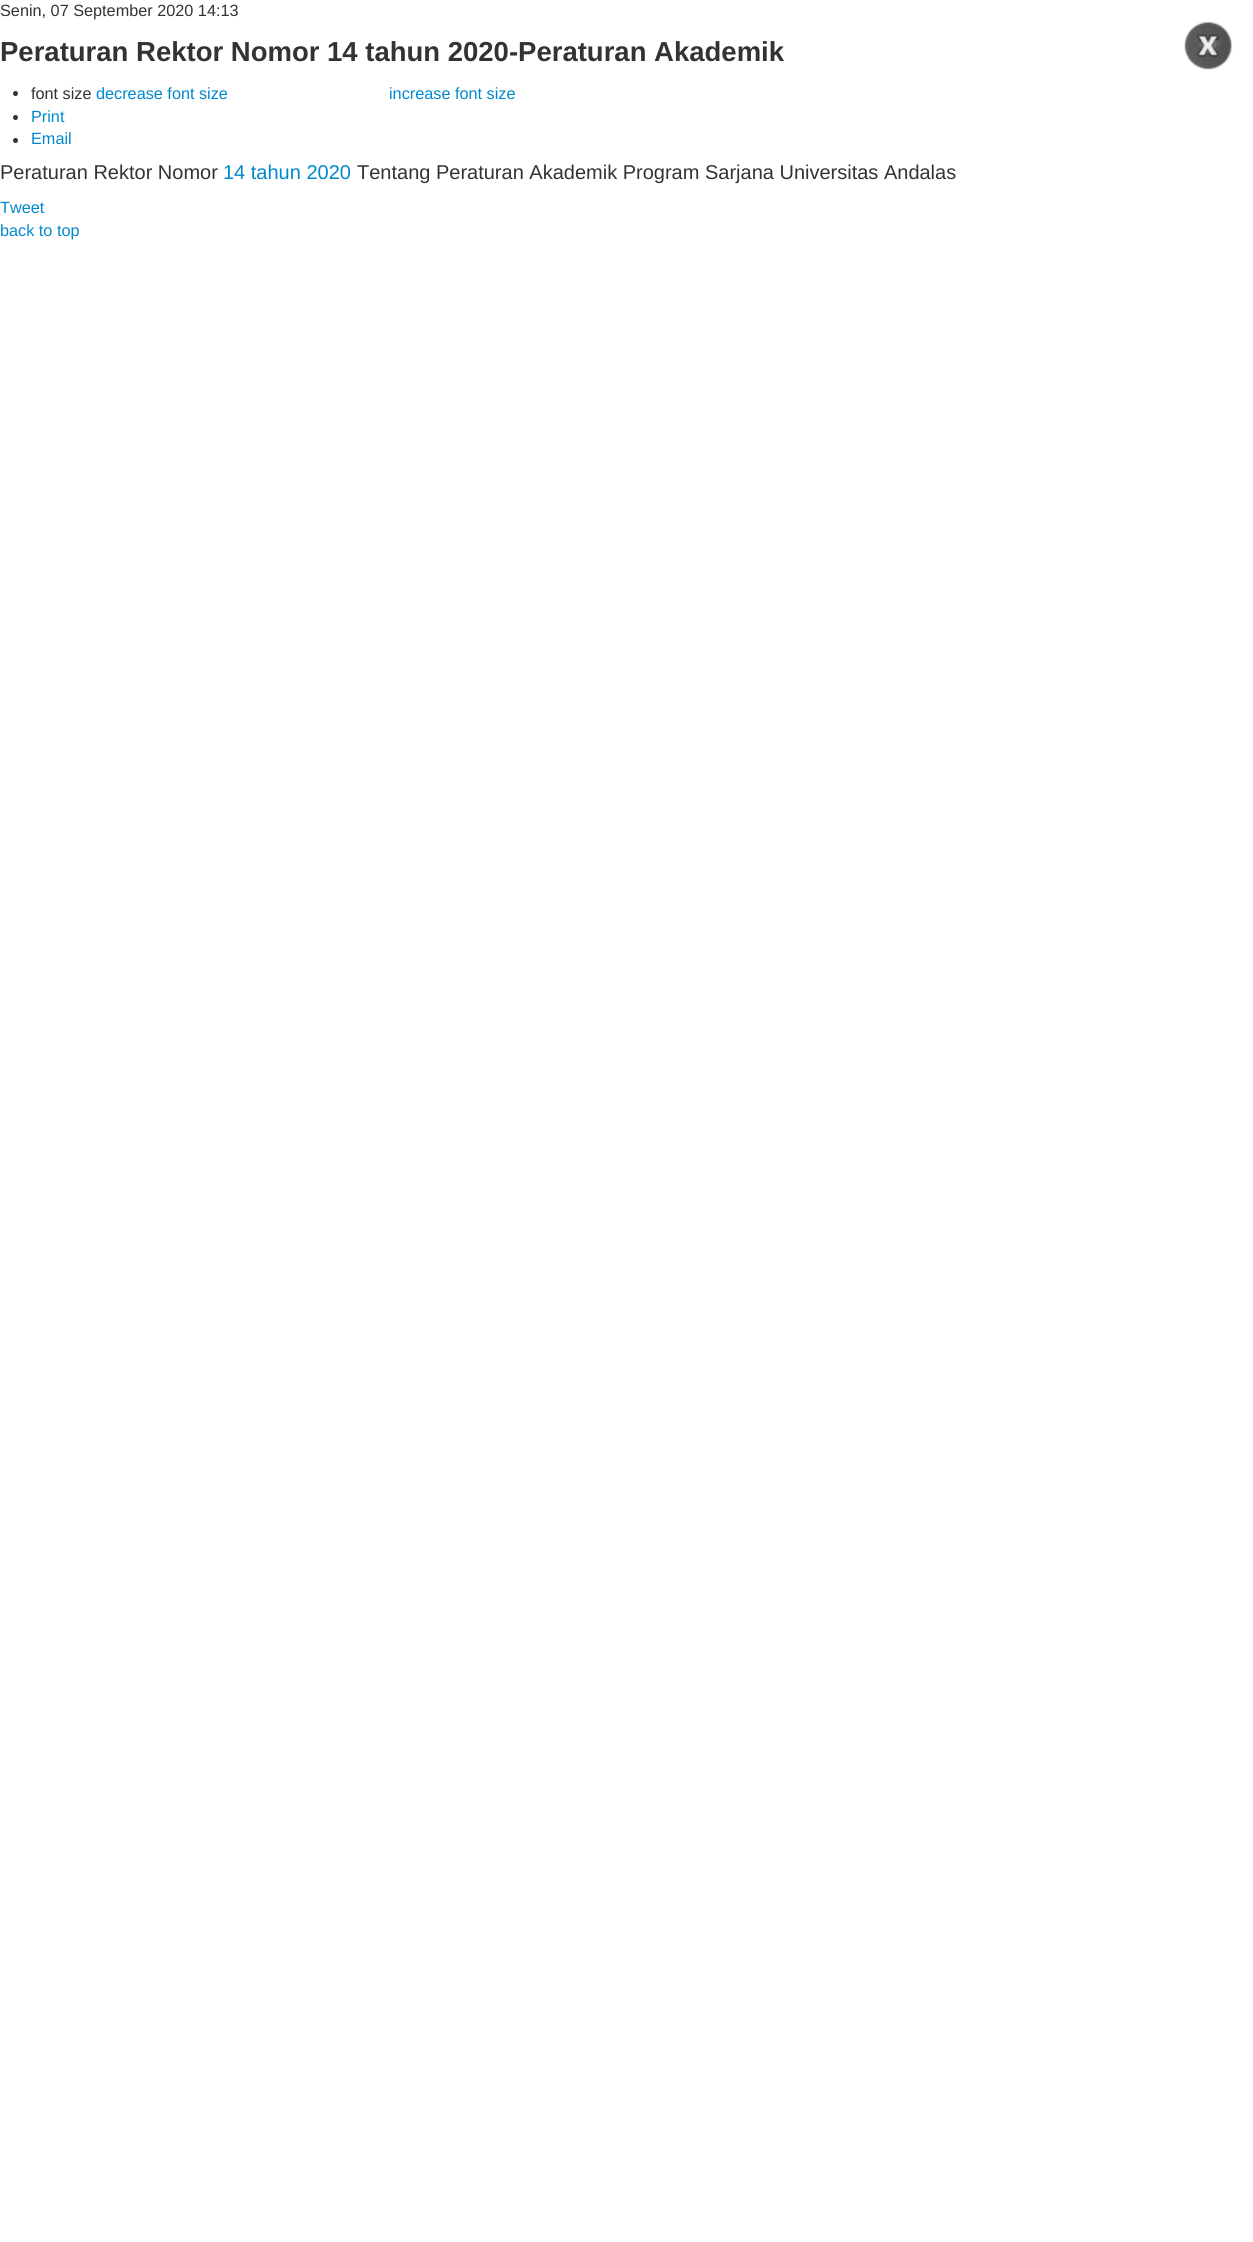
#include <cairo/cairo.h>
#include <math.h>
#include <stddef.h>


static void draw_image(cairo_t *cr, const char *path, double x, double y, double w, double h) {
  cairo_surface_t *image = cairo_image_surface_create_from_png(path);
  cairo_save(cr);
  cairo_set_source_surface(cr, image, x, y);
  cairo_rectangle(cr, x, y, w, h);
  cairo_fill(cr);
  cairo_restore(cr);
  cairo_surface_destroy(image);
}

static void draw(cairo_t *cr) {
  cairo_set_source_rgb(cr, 1, 1, 1);
  cairo_paint(cr);
  cairo_set_source_rgb(cr, 51 / 255.0, 51 / 255.0, 51 / 255.0);
  cairo_arc(cr, 15.5, 93.5, 2.5, 0, 2 * M_PI);
  cairo_fill(cr);
  cairo_arc(cr, 15.5, 117.5, 2.5, 0, 2 * M_PI);
  cairo_fill(cr);
  cairo_arc(cr, 15.5, 140.5, 2.5, 0, 2 * M_PI);
  cairo_fill(cr);
  draw_image(cr, "images/1.png", 1184, 21, 49, 49);
  cairo_select_font_face(cr, "Liberation Sans", CAIRO_FONT_SLANT_NORMAL, CAIRO_FONT_WEIGHT_NORMAL);
  cairo_set_font_size(cr, 16.25);
  cairo_move_to(cr, 0, 16);
  cairo_show_text(cr, "Senin, 07 September 2020 14:13");
  cairo_select_font_face(cr, "Liberation Sans", CAIRO_FONT_SLANT_NORMAL, CAIRO_FONT_WEIGHT_BOLD);
  cairo_set_font_size(cr, 27.5);
  cairo_move_to(cr, 0, 61);
  cairo_show_text(cr, "Peraturan Rektor Nomor 14 tahun 2020-Peraturan Akademik");
  cairo_select_font_face(cr, "Liberation Sans", CAIRO_FONT_SLANT_NORMAL, CAIRO_FONT_WEIGHT_NORMAL);
  cairo_set_font_size(cr, 16.25);
  cairo_move_to(cr, 31, 99);
  cairo_show_text(cr, "font size");
  cairo_set_source_rgb(cr, 0, 136 / 255.0, 204 / 255.0);
  cairo_move_to(cr, 96, 99);
  cairo_show_text(cr, "decrease font size");
  cairo_move_to(cr, 389, 99);
  cairo_show_text(cr, "increase font size");
  cairo_move_to(cr, 31, 122);
  cairo_show_text(cr, "Print");
  cairo_move_to(cr, 31, 144);
  cairo_show_text(cr, "Email");
  cairo_set_font_size(cr, 20);
  cairo_set_source_rgb(cr, 51 / 255.0, 51 / 255.0, 51 / 255.0);
  cairo_move_to(cr, 0, 179);
  cairo_show_text(cr, "Peraturan Rektor Nomor");
  cairo_set_source_rgb(cr, 0, 136 / 255.0, 204 / 255.0);
  cairo_move_to(cr, 223, 179);
  cairo_show_text(cr, "14 tahun 2020");
  cairo_set_source_rgb(cr, 51 / 255.0, 51 / 255.0, 51 / 255.0);
  cairo_move_to(cr, 357, 179);
  cairo_show_text(cr, "Tentang Peraturan Akademik Program Sarjana Universitas Andalas");
  cairo_set_font_size(cr, 16.25);
  cairo_set_source_rgb(cr, 0, 136 / 255.0, 204 / 255.0);
  cairo_move_to(cr, 0, 213);
  cairo_show_text(cr, "Tweet");
  cairo_move_to(cr, 0, 236);
  cairo_show_text(cr, "back to top");
}

int main(void) {
  cairo_surface_t *surface = cairo_image_surface_create(CAIRO_FORMAT_RGB24, 1253, 2242);
  cairo_t *cr = cairo_create(surface);
  cairo_font_options_t *options = cairo_font_options_create();
  cairo_font_options_set_hint_metrics(options, CAIRO_HINT_METRICS_OFF);
  cairo_font_options_set_hint_style(options, CAIRO_HINT_STYLE_NONE);
  cairo_set_font_options(cr, options);
  cairo_set_miter_limit(cr, 4);
  draw(cr);
  cairo_surface_write_to_png(surface, "out.png");
  cairo_font_options_destroy(options);
  cairo_destroy(cr);
  cairo_surface_destroy(surface);
  return 0;
}
